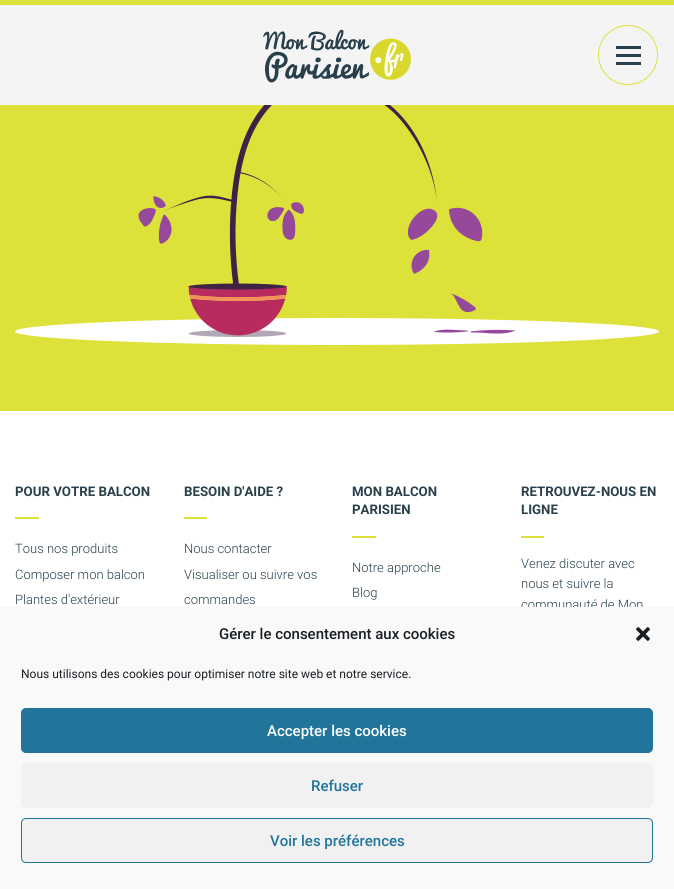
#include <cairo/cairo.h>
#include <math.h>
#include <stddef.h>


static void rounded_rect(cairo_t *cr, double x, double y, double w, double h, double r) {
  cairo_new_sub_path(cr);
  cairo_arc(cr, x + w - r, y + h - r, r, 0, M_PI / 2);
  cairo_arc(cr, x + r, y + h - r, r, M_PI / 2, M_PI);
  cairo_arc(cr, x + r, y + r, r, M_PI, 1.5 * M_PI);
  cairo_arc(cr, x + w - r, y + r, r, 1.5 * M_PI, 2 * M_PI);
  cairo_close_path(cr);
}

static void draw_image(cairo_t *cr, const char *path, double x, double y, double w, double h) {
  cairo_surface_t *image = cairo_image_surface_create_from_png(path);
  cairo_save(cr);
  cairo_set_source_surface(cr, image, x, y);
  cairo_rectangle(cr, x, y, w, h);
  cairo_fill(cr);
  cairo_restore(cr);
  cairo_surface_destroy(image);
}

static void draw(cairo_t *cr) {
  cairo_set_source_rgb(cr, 1, 1, 1);
  cairo_paint(cr);
  cairo_set_source_rgb(cr, 221 / 255.0, 226 / 255.0, 58 / 255.0);
  cairo_rectangle(cr, 0, 0, 674, 5);
  cairo_fill(cr);
  cairo_set_source_rgb(cr, 244 / 255.0, 244 / 255.0, 244 / 255.0);
  cairo_rectangle(cr, 0, 5, 674, 100);
  cairo_fill(cr);
  draw_image(cr, "images/1.png", 263, 29, 148, 54);
  cairo_arc(cr, 628, 55, 29.5, 0, 2 * M_PI);
  cairo_set_source_rgb(cr, 221 / 255.0, 226 / 255.0, 58 / 255.0);
  cairo_set_line_width(cr, 1);
  cairo_stroke(cr);
  cairo_set_source_rgb(cr, 41 / 255.0, 63 / 255.0, 76 / 255.0);
  cairo_rectangle(cr, 616, 54, 25, 3);
  cairo_fill(cr);
  cairo_rectangle(cr, 616, 46, 25, 3);
  cairo_fill(cr);
  cairo_rectangle(cr, 616, 62, 25, 3);
  cairo_fill(cr);
  cairo_set_source_rgb(cr, 221 / 255.0, 226 / 255.0, 58 / 255.0);
  cairo_rectangle(cr, 0, 105, 674, 306);
  cairo_fill(cr);
  draw_image(cr, "images/2.png", 15, 105, 644, 240);
  cairo_rectangle(cr, 15, 517, 24, 2);
  cairo_fill(cr);
  cairo_rectangle(cr, 184, 517, 23, 2);
  cairo_fill(cr);
  cairo_rectangle(cr, 352, 536, 24, 2);
  cairo_fill(cr);
  cairo_rectangle(cr, 521, 536, 23, 2);
  cairo_fill(cr);
  cairo_select_font_face(cr, "Roboto", CAIRO_FONT_SLANT_NORMAL, CAIRO_FONT_WEIGHT_BOLD);
  cairo_set_font_size(cr, 13.25);
  cairo_set_source_rgb(cr, 41 / 255.0, 63 / 255.0, 76 / 255.0);
  cairo_move_to(cr, 15, 496);
  cairo_show_text(cr, "POUR VOTRE BALCON");
  cairo_select_font_face(cr, "Roboto Light", CAIRO_FONT_SLANT_NORMAL, CAIRO_FONT_WEIGHT_NORMAL);
  cairo_set_font_size(cr, 13);
  cairo_move_to(cr, 15, 553);
  cairo_show_text(cr, "Tous nos produits");
  cairo_move_to(cr, 15, 579);
  cairo_show_text(cr, "Composer mon balcon");
  cairo_move_to(cr, 15, 604);
  cairo_show_text(cr, "Plantes d'extérieur");
  cairo_select_font_face(cr, "Roboto", CAIRO_FONT_SLANT_NORMAL, CAIRO_FONT_WEIGHT_BOLD);
  cairo_set_font_size(cr, 13.25);
  cairo_move_to(cr, 184, 496);
  cairo_show_text(cr, "BESOIN D'AIDE ?");
  cairo_select_font_face(cr, "Roboto Light", CAIRO_FONT_SLANT_NORMAL, CAIRO_FONT_WEIGHT_NORMAL);
  cairo_set_font_size(cr, 13);
  cairo_move_to(cr, 184, 553);
  cairo_show_text(cr, "Nous contacter");
  cairo_move_to(cr, 184, 579);
  cairo_show_text(cr, "Visualiser ou suivre vos");
  cairo_move_to(cr, 184, 604);
  cairo_show_text(cr, "commandes");
  cairo_select_font_face(cr, "Roboto", CAIRO_FONT_SLANT_NORMAL, CAIRO_FONT_WEIGHT_BOLD);
  cairo_set_font_size(cr, 13.25);
  cairo_move_to(cr, 352, 496);
  cairo_show_text(cr, "MON BALCON");
  cairo_move_to(cr, 352, 514);
  cairo_show_text(cr, "PARISIEN");
  cairo_select_font_face(cr, "Roboto Light", CAIRO_FONT_SLANT_NORMAL, CAIRO_FONT_WEIGHT_NORMAL);
  cairo_set_font_size(cr, 13);
  cairo_move_to(cr, 352, 572);
  cairo_show_text(cr, "Notre approche");
  cairo_move_to(cr, 352, 597);
  cairo_show_text(cr, "Blog");
  cairo_select_font_face(cr, "Roboto", CAIRO_FONT_SLANT_NORMAL, CAIRO_FONT_WEIGHT_BOLD);
  cairo_set_font_size(cr, 13.25);
  cairo_move_to(cr, 521, 496);
  cairo_show_text(cr, "RETROUVEZ-NOUS EN");
  cairo_move_to(cr, 521, 514);
  cairo_show_text(cr, "LIGNE");
  cairo_select_font_face(cr, "Roboto Light", CAIRO_FONT_SLANT_NORMAL, CAIRO_FONT_WEIGHT_NORMAL);
  cairo_set_font_size(cr, 13);
  cairo_move_to(cr, 521, 568);
  cairo_show_text(cr, "Venez discuter avec");
  cairo_move_to(cr, 521, 588);
  cairo_show_text(cr, "nous et suivre la");
  cairo_move_to(cr, 521, 609);
  cairo_show_text(cr, "communauté de Mon");
  cairo_set_source_rgb(cr, 249 / 255.0, 249 / 255.0, 249 / 255.0);
  cairo_rectangle(cr, 0, 607, 674, 282);
  cairo_fill(cr);
  cairo_select_font_face(cr, "Roboto Medium", CAIRO_FONT_SLANT_NORMAL, CAIRO_FONT_WEIGHT_NORMAL);
  cairo_set_font_size(cr, 15);
  cairo_set_source_rgb(cr, 25 / 255.0, 30 / 255.0, 35 / 255.0);
  cairo_move_to(cr, 219, 639);
  cairo_show_text(cr, "Gérer le consentement aux cookies");
  draw_image(cr, "images/3.png", 636, 627, 14, 14);
  cairo_select_font_face(cr, "Roboto", CAIRO_FONT_SLANT_NORMAL, CAIRO_FONT_WEIGHT_NORMAL);
  cairo_set_font_size(cr, 12);
  cairo_move_to(cr, 21, 678);
  cairo_show_text(cr, "Nous utilisons des cookies pour optimiser notre site web et notre service.");
  cairo_set_source_rgb(cr, 33 / 255.0, 117 / 255.0, 155 / 255.0);
  rounded_rect(cr, 21.5, 708.5, 631, 44, 4.5);
  cairo_fill_preserve(cr);
  cairo_stroke(cr);
  cairo_select_font_face(cr, "Roboto Medium", CAIRO_FONT_SLANT_NORMAL, CAIRO_FONT_WEIGHT_NORMAL);
  cairo_set_font_size(cr, 15);
  cairo_set_source_rgb(cr, 1, 1, 1);
  cairo_move_to(cr, 267, 736);
  cairo_show_text(cr, "Accepter les cookies");
  cairo_set_source_rgb(cr, 241 / 255.0, 241 / 255.0, 241 / 255.0);
  rounded_rect(cr, 21, 763, 632, 45, 5);
  cairo_fill(cr);
  cairo_set_source_rgb(cr, 33 / 255.0, 117 / 255.0, 155 / 255.0);
  cairo_move_to(cr, 311, 791);
  cairo_show_text(cr, "Refuser");
  cairo_set_source_rgb(cr, 241 / 255.0, 241 / 255.0, 241 / 255.0);
  rounded_rect(cr, 21.5, 818.5, 631, 44, 4.5);
  cairo_fill_preserve(cr);
  cairo_set_source_rgb(cr, 33 / 255.0, 117 / 255.0, 155 / 255.0);
  cairo_stroke(cr);
  cairo_move_to(cr, 270, 846);
  cairo_show_text(cr, "Voir les préférences");
}

int main(void) {
  cairo_surface_t *surface = cairo_image_surface_create(CAIRO_FORMAT_RGB24, 674, 889);
  cairo_t *cr = cairo_create(surface);
  cairo_font_options_t *options = cairo_font_options_create();
  cairo_font_options_set_hint_metrics(options, CAIRO_HINT_METRICS_OFF);
  cairo_font_options_set_hint_style(options, CAIRO_HINT_STYLE_NONE);
  cairo_set_font_options(cr, options);
  cairo_set_miter_limit(cr, 4);
  draw(cr);
  cairo_surface_write_to_png(surface, "out.png");
  cairo_font_options_destroy(options);
  cairo_destroy(cr);
  cairo_surface_destroy(surface);
  return 0;
}
